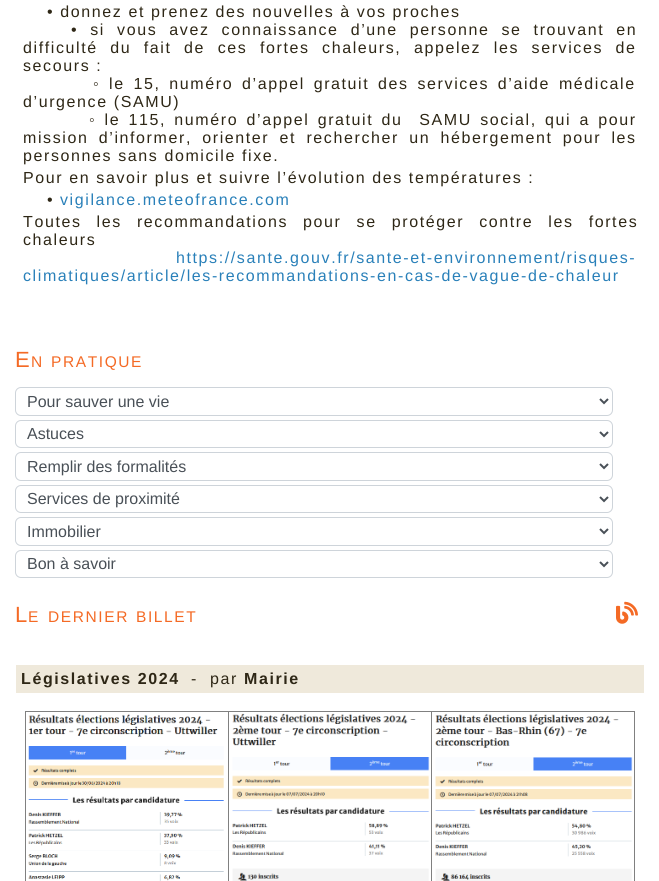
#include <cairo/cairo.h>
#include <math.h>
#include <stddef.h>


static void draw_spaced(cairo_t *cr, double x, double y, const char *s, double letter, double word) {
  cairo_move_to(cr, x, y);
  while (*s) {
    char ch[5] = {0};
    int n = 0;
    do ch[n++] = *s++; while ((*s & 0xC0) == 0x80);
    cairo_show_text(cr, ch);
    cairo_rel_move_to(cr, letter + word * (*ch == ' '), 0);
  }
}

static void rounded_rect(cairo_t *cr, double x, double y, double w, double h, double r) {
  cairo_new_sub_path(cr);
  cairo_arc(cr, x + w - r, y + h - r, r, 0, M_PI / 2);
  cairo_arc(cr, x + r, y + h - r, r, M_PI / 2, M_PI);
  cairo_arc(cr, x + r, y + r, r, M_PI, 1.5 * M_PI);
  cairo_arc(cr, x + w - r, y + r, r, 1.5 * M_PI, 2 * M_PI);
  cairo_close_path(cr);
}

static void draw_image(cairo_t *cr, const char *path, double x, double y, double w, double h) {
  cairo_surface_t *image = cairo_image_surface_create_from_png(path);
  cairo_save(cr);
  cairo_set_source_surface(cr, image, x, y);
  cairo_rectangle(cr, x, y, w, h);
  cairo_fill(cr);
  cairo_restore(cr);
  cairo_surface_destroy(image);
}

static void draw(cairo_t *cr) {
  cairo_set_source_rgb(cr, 1, 1, 1);
  cairo_paint(cr);
  rounded_rect(cr, 15.5, 387.5, 597, 28, 5.5);
  cairo_set_source_rgb(cr, 206 / 255.0, 212 / 255.0, 218 / 255.0);
  cairo_set_line_width(cr, 1);
  cairo_stroke(cr);
  cairo_new_path(cr);
  cairo_move_to(cr, 600, 399);
  cairo_line_to(cr, 604, 403);
  cairo_line_to(cr, 608, 399);
  cairo_set_source_rgb(cr, 73 / 255.0, 80 / 255.0, 87 / 255.0);
  cairo_set_line_width(cr, 2);
  cairo_stroke(cr);
  rounded_rect(cr, 15.5, 420.5, 597, 27, 5.5);
  cairo_set_source_rgb(cr, 206 / 255.0, 212 / 255.0, 218 / 255.0);
  cairo_set_line_width(cr, 1);
  cairo_stroke(cr);
  cairo_new_path(cr);
  cairo_move_to(cr, 600, 432);
  cairo_line_to(cr, 604, 436);
  cairo_line_to(cr, 608, 432);
  cairo_set_source_rgb(cr, 73 / 255.0, 80 / 255.0, 87 / 255.0);
  cairo_set_line_width(cr, 2);
  cairo_stroke(cr);
  rounded_rect(cr, 15.5, 452.5, 597, 28, 5.5);
  cairo_set_source_rgb(cr, 206 / 255.0, 212 / 255.0, 218 / 255.0);
  cairo_set_line_width(cr, 1);
  cairo_stroke(cr);
  cairo_new_path(cr);
  cairo_move_to(cr, 600, 464);
  cairo_line_to(cr, 604, 468);
  cairo_line_to(cr, 608, 464);
  cairo_set_source_rgb(cr, 73 / 255.0, 80 / 255.0, 87 / 255.0);
  cairo_set_line_width(cr, 2);
  cairo_stroke(cr);
  rounded_rect(cr, 15.5, 485.5, 597, 27, 5.5);
  cairo_set_source_rgb(cr, 206 / 255.0, 212 / 255.0, 218 / 255.0);
  cairo_set_line_width(cr, 1);
  cairo_stroke(cr);
  cairo_new_path(cr);
  cairo_move_to(cr, 600, 497);
  cairo_line_to(cr, 604, 501);
  cairo_line_to(cr, 608, 497);
  cairo_set_source_rgb(cr, 73 / 255.0, 80 / 255.0, 87 / 255.0);
  cairo_set_line_width(cr, 2);
  cairo_stroke(cr);
  rounded_rect(cr, 15.5, 517.5, 597, 28, 5.5);
  cairo_set_source_rgb(cr, 206 / 255.0, 212 / 255.0, 218 / 255.0);
  cairo_set_line_width(cr, 1);
  cairo_stroke(cr);
  cairo_new_path(cr);
  cairo_move_to(cr, 600, 529);
  cairo_line_to(cr, 604, 533);
  cairo_line_to(cr, 608, 529);
  cairo_set_source_rgb(cr, 73 / 255.0, 80 / 255.0, 87 / 255.0);
  cairo_set_line_width(cr, 2);
  cairo_stroke(cr);
  rounded_rect(cr, 15.5, 550.5, 597, 27, 5.5);
  cairo_set_source_rgb(cr, 206 / 255.0, 212 / 255.0, 218 / 255.0);
  cairo_set_line_width(cr, 1);
  cairo_stroke(cr);
  cairo_new_path(cr);
  cairo_move_to(cr, 600, 562);
  cairo_line_to(cr, 604, 566);
  cairo_line_to(cr, 608, 562);
  cairo_set_source_rgb(cr, 73 / 255.0, 80 / 255.0, 87 / 255.0);
  cairo_set_line_width(cr, 2);
  cairo_stroke(cr);
  draw_image(cr, "images/1.png", 616, 601, 22, 23);
  cairo_set_source_rgb(cr, 239 / 255.0, 233 / 255.0, 219 / 255.0);
  cairo_rectangle(cr, 16, 665, 628, 28);
  cairo_fill(cr);
  cairo_set_source_rgb(cr, 128 / 255.0, 128 / 255.0, 128 / 255.0);
  cairo_rectangle(cr, 25, 711, 610, 1);
  cairo_fill(cr);
  cairo_rectangle(cr, 634, 711, 1, 170);
  cairo_fill(cr);
  cairo_rectangle(cr, 25, 711, 1, 170);
  cairo_fill(cr);
  draw_image(cr, "images/2.png", 28, 714, 196, 167);
  cairo_rectangle(cr, 228, 711, 1, 170);
  cairo_fill(cr);
  draw_image(cr, "images/3.png", 232, 713, 198, 168);
  cairo_rectangle(cr, 431, 711, 1, 170);
  cairo_fill(cr);
  draw_image(cr, "images/4.png", 435, 713, 198, 168);
  cairo_select_font_face(cr, "Liberation Sans", CAIRO_FONT_SLANT_NORMAL, CAIRO_FONT_WEIGHT_NORMAL);
  cairo_set_font_size(cr, 16);
  cairo_set_source_rgb(cr, 46 / 255.0, 39 / 255.0, 22 / 255.0);
  draw_spaced(cr, 47, 17, "• donnez et prenez des nouvelles à vos proches", 1.6, 0);
  draw_spaced(cr, 71, 35, "• si vous avez connaissance d’une personne se trouvant en", 1.6, 6);
  draw_spaced(cr, 23, 53, "difficulté du fait de ces fortes chaleurs, appelez les services de", 1.6, 6.5);
  draw_spaced(cr, 23, 71, "secours :", 1.6, 0);
  draw_spaced(cr, 93, 89, "◦ le 15, numéro d’appel gratuit des services d’aide médicale", 1.6, 2.75);
  draw_spaced(cr, 23, 107, "d’urgence (SAMU)", 1.6, 0);
  draw_spaced(cr, 89, 125, "◦ le 115, numéro d’appel gratuit du  SAMU social, qui a pour", 1.6, 2.25);
  draw_spaced(cr, 23, 143, "mission d’informer, orienter et rechercher un hébergement pour les", 1.6, 4.25);
  draw_spaced(cr, 23, 161, "personnes sans domicile fixe.", 1.6, 0);
  draw_spaced(cr, 23, 183, "Pour en savoir plus et suivre l’évolution des températures :", 1.6, 0);
  draw_spaced(cr, 47, 205, "•", 1.6, 0);
  cairo_set_source_rgb(cr, 41 / 255.0, 128 / 255.0, 185 / 255.0);
  draw_spaced(cr, 60, 205, "vigilance.meteofrance.com", 1.6, 0);
  cairo_set_source_rgb(cr, 46 / 255.0, 39 / 255.0, 22 / 255.0);
  draw_spaced(cr, 23, 227, "Toutes les recommandations pour se protéger contre les fortes", 1.6, 9);
  draw_spaced(cr, 23, 245, "chaleurs", 1.6, 0);
  cairo_set_source_rgb(cr, 41 / 255.0, 128 / 255.0, 185 / 255.0);
  draw_spaced(cr, 176, 263, "https://sante.gouv.fr/sante-et-environnement/risques-", 1.6, 0);
  draw_spaced(cr, 23, 281, "climatiques/article/les-recommandations-en-cas-de-vague-de-chaleur", 1.6, 0);
  cairo_set_font_size(cr, 22);
  cairo_set_source_rgb(cr, 244 / 255.0, 106 / 255.0, 37 / 255.0);
  draw_spaced(cr, 15, 367, "E", 1.6, 0);
  cairo_set_font_size(cr, 15.5);
  draw_spaced(cr, 31, 367, "N", 1.6, 0);
  draw_spaced(cr, 51, 367, "PRATIQUE", 1.6, 0);
  cairo_set_font_size(cr, 16);
  cairo_set_source_rgb(cr, 73 / 255.0, 80 / 255.0, 87 / 255.0);
  cairo_move_to(cr, 27, 407);
  cairo_show_text(cr, "Pour sauver une vie");
  cairo_move_to(cr, 27, 439);
  cairo_show_text(cr, "Astuces");
  cairo_move_to(cr, 27, 472);
  cairo_show_text(cr, "Remplir des formalités");
  cairo_move_to(cr, 27, 504);
  cairo_show_text(cr, "Services de proximité");
  cairo_move_to(cr, 27, 537);
  cairo_show_text(cr, "Immobilier");
  cairo_move_to(cr, 27, 569);
  cairo_show_text(cr, "Bon à savoir");
  cairo_set_font_size(cr, 22);
  cairo_set_source_rgb(cr, 244 / 255.0, 106 / 255.0, 37 / 255.0);
  draw_spaced(cr, 15, 622, "L", 1.6, 0);
  cairo_set_font_size(cr, 15.5);
  draw_spaced(cr, 28, 622, "E", 1.6, 0);
  draw_spaced(cr, 48, 622, "DERNIER", 1.6, 0);
  draw_spaced(cr, 136, 622, "BILLET", 1.6, 0);
  cairo_select_font_face(cr, "Liberation Sans", CAIRO_FONT_SLANT_NORMAL, CAIRO_FONT_WEIGHT_BOLD);
  cairo_set_font_size(cr, 16);
  cairo_set_source_rgb(cr, 46 / 255.0, 39 / 255.0, 22 / 255.0);
  draw_spaced(cr, 21, 684, "Législatives 2024", 1.6, 0);
  cairo_select_font_face(cr, "Liberation Sans", CAIRO_FONT_SLANT_NORMAL, CAIRO_FONT_WEIGHT_NORMAL);
  draw_spaced(cr, 191, 684, "-  par", 1.6, 0);
  cairo_select_font_face(cr, "Liberation Sans", CAIRO_FONT_SLANT_NORMAL, CAIRO_FONT_WEIGHT_BOLD);
  draw_spaced(cr, 244, 684, "Mairie", 1.6, 0);
}

int main(void) {
  cairo_surface_t *surface = cairo_image_surface_create(CAIRO_FORMAT_RGB24, 659, 881);
  cairo_t *cr = cairo_create(surface);
  cairo_font_options_t *options = cairo_font_options_create();
  cairo_font_options_set_hint_metrics(options, CAIRO_HINT_METRICS_OFF);
  cairo_font_options_set_hint_style(options, CAIRO_HINT_STYLE_NONE);
  cairo_set_font_options(cr, options);
  cairo_set_miter_limit(cr, 4);
  draw(cr);
  cairo_surface_write_to_png(surface, "out.png");
  cairo_font_options_destroy(options);
  cairo_destroy(cr);
  cairo_surface_destroy(surface);
  return 0;
}
